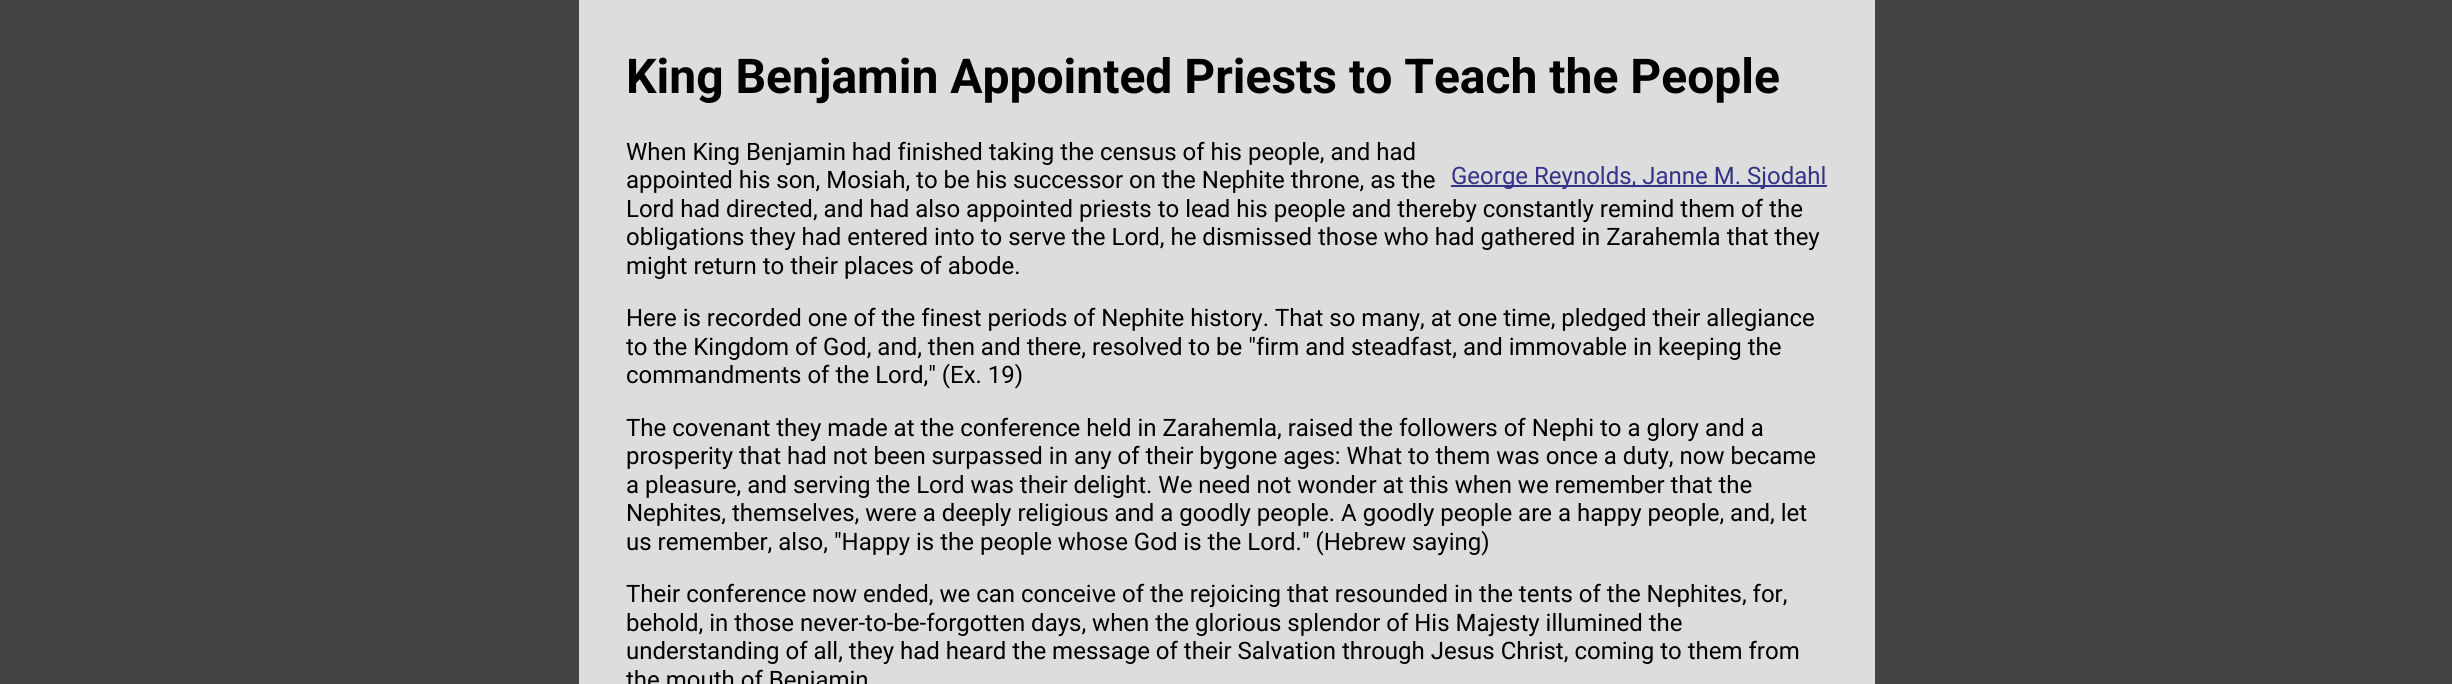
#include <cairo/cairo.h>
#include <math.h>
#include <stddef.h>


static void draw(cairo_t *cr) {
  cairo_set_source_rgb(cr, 68 / 255.0, 68 / 255.0, 68 / 255.0);
  cairo_paint(cr);
  cairo_set_source_rgb(cr, 221 / 255.0, 221 / 255.0, 221 / 255.0);
  cairo_rectangle(cr, 579, 0, 1296, 684);
  cairo_fill(cr);
  cairo_set_source_rgb(cr, 51 / 255.0, 51 / 255.0, 136 / 255.0);
  cairo_rectangle(cr, 1451, 185, 376, 2);
  cairo_fill(cr);
  cairo_select_font_face(cr, "Roboto", CAIRO_FONT_SLANT_NORMAL, CAIRO_FONT_WEIGHT_BOLD);
  cairo_set_font_size(cr, 48);
  cairo_set_source_rgb(cr, 0, 0, 0);
  cairo_move_to(cr, 626, 93);
  cairo_show_text(cr, "King Benjamin Appointed Priests to Teach the People");
  cairo_select_font_face(cr, "Roboto", CAIRO_FONT_SLANT_NORMAL, CAIRO_FONT_WEIGHT_NORMAL);
  cairo_set_font_size(cr, 24);
  cairo_move_to(cr, 626, 160);
  cairo_show_text(cr, "When King Benjamin had finished taking the census of his people, and had");
  cairo_move_to(cr, 626, 188);
  cairo_show_text(cr, "appointed his son, Mosiah, to be his successor on the Nephite throne, as the");
  cairo_move_to(cr, 626, 217);
  cairo_show_text(cr, "Lord had directed, and had also appointed priests to lead his people and thereby constantly remind them of the");
  cairo_move_to(cr, 626, 245);
  cairo_show_text(cr, "obligations they had entered into to serve the Lord, he dismissed those who had gathered in Zarahemla that they");
  cairo_move_to(cr, 626, 274);
  cairo_show_text(cr, "might return to their places of abode.");
  cairo_move_to(cr, 626, 326);
  cairo_show_text(cr, "Here is recorded one of the finest periods of Nephite history. That so many, at one time, pledged their allegiance");
  cairo_move_to(cr, 626, 355);
  cairo_show_text(cr, "to the Kingdom of God, and, then and there, resolved to be \"firm and steadfast, and immovable in keeping the");
  cairo_move_to(cr, 626, 383);
  cairo_show_text(cr, "commandments of the Lord,\" (Ex. 19)");
  cairo_move_to(cr, 626, 436);
  cairo_show_text(cr, "The covenant they made at the conference held in Zarahemla, raised the followers of Nephi to a glory and a");
  cairo_move_to(cr, 626, 464);
  cairo_show_text(cr, "prosperity that had not been surpassed in any of their bygone ages: What to them was once a duty, now became");
  cairo_move_to(cr, 626, 493);
  cairo_show_text(cr, "a pleasure, and serving the Lord was their delight. We need not wonder at this when we remember that the");
  cairo_move_to(cr, 626, 521);
  cairo_show_text(cr, "Nephites, themselves, were a deeply religious and a goodly people. A goodly people are a happy people, and, let");
  cairo_move_to(cr, 626, 550);
  cairo_show_text(cr, "us remember, also, \"Happy is the people whose God is the Lord.\" (Hebrew saying)");
  cairo_move_to(cr, 626, 602);
  cairo_show_text(cr, "Their conference now ended, we can conceive of the rejoicing that resounded in the tents of the Nephites, for,");
  cairo_move_to(cr, 626, 631);
  cairo_show_text(cr, "behold, in those never-to-be-forgotten days, when the glorious splendor of His Majesty illumined the");
  cairo_move_to(cr, 626, 659);
  cairo_show_text(cr, "understanding of all, they had heard the message of their Salvation through Jesus Christ, coming to them from");
  cairo_move_to(cr, 626, 688);
  cairo_show_text(cr, "the mouth of Benjamin");
  cairo_set_source_rgb(cr, 51 / 255.0, 51 / 255.0, 136 / 255.0);
  cairo_move_to(cr, 1451, 184);
  cairo_show_text(cr, "George Reynolds, Janne M. Sjodahl");
}

int main(void) {
  cairo_surface_t *surface = cairo_image_surface_create(CAIRO_FORMAT_RGB24, 2452, 684);
  cairo_t *cr = cairo_create(surface);
  cairo_font_options_t *options = cairo_font_options_create();
  cairo_font_options_set_hint_metrics(options, CAIRO_HINT_METRICS_OFF);
  cairo_font_options_set_hint_style(options, CAIRO_HINT_STYLE_NONE);
  cairo_set_font_options(cr, options);
  cairo_set_miter_limit(cr, 4);
  draw(cr);
  cairo_surface_write_to_png(surface, "out.png");
  cairo_font_options_destroy(options);
  cairo_destroy(cr);
  cairo_surface_destroy(surface);
  return 0;
}
